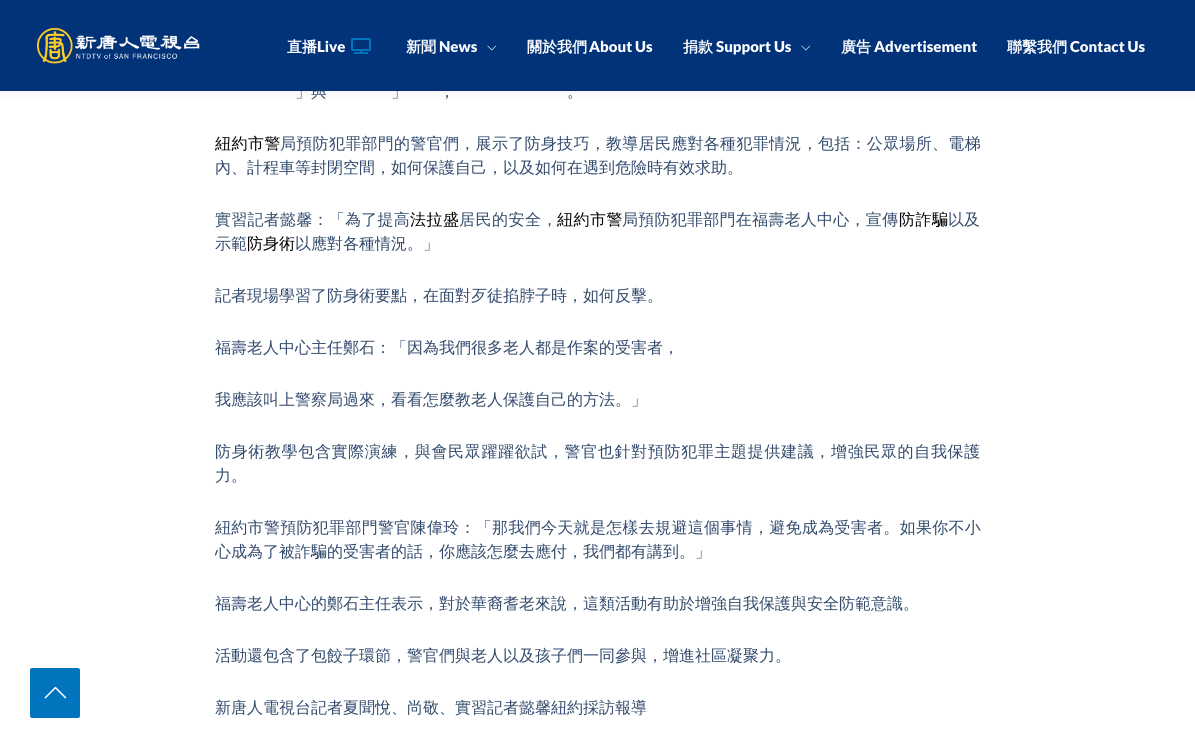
#include <cairo/cairo.h>
#include <math.h>
#include <stddef.h>


static void draw_spaced(cairo_t *cr, double x, double y, const char *s, double letter, double word) {
  cairo_move_to(cr, x, y);
  while (*s) {
    char ch[5] = {0};
    int n = 0;
    do ch[n++] = *s++; while ((*s & 0xC0) == 0x80);
    cairo_show_text(cr, ch);
    cairo_rel_move_to(cr, letter + word * (*ch == ' '), 0);
  }
}

static void rounded_rect(cairo_t *cr, double x, double y, double w, double h, double r) {
  cairo_new_sub_path(cr);
  cairo_arc(cr, x + w - r, y + h - r, r, 0, M_PI / 2);
  cairo_arc(cr, x + r, y + h - r, r, M_PI / 2, M_PI);
  cairo_arc(cr, x + r, y + r, r, M_PI, 1.5 * M_PI);
  cairo_arc(cr, x + w - r, y + r, r, 1.5 * M_PI, 2 * M_PI);
  cairo_close_path(cr);
}

static void draw_shadow(cairo_t *cr, double x, double y, double w, double h, double r, double blur, double alpha) {
  cairo_push_group_with_content(cr, CAIRO_CONTENT_ALPHA);
  cairo_set_operator(cr, CAIRO_OPERATOR_SOURCE);
  for (int i = 15; i >= -15 && fmin(w, h) + blur * i / 3 > 0; i -= 2) {
    double e = blur * i / 6;
    cairo_set_source_rgba(cr, 0, 0, 0, alpha * erfc((i - 1) / 8.5) / 2);
    rounded_rect(cr, x - e, y - e, w + 2 * e, h + 2 * e, fmax(0, fmin(r + e + blur * .6, fmin(w, h) / 2 + e)));
    cairo_fill(cr);
  }
  cairo_pattern_t *soft = cairo_pop_group(cr);
  cairo_mask(cr, soft);
  cairo_pattern_destroy(soft);
}

static void draw_image(cairo_t *cr, const char *path, double x, double y, double w, double h) {
  cairo_surface_t *image = cairo_image_surface_create_from_png(path);
  cairo_save(cr);
  cairo_set_source_surface(cr, image, x, y);
  cairo_rectangle(cr, x, y, w, h);
  cairo_fill(cr);
  cairo_restore(cr);
  cairo_surface_destroy(image);
}

static void draw(cairo_t *cr) {
  cairo_set_source_rgb(cr, 1, 1, 1);
  cairo_paint(cr);
  cairo_set_source_rgb(cr, 2 / 255.0, 116 / 255.0, 190 / 255.0);
  cairo_new_path(cr);
  cairo_move_to(cr, 78, 718);
  cairo_line_to(cr, 32, 718);
  cairo_curve_to(cr, 31, 718, 30, 717, 30, 716);
  cairo_line_to(cr, 30, 670);
  cairo_curve_to(cr, 30, 669, 31, 668, 32, 668);
  cairo_line_to(cr, 78, 668);
  cairo_curve_to(cr, 79, 668, 80, 669, 80, 670);
  cairo_line_to(cr, 80, 716);
  cairo_curve_to(cr, 80, 717, 79, 718, 78, 718);
  cairo_close_path(cr);
  cairo_fill(cr);
  draw_image(cr, "images/1.png", 44, 686, 23, 13);
  cairo_set_source_rgb(cr, 36 / 255.0, 50 / 255.0, 66 / 255.0);
  draw_shadow(cr, 0, 2, 1195, 91, 0, 5, 0.07);
  cairo_select_font_face(cr, "WenQuanYi Zen Hei Medium", CAIRO_FONT_SLANT_NORMAL, CAIRO_FONT_WEIGHT_NORMAL);
  cairo_set_font_size(cr, 16);
  cairo_set_source_rgb(cr, 50 / 255.0, 74 / 255.0, 109 / 255.0);
  cairo_move_to(cr, 295, 97);
  cairo_show_text(cr, "」與");
  cairo_move_to(cr, 391, 97);
  cairo_show_text(cr, "」");
  cairo_set_source_rgb(cr, 2 / 255.0, 51 / 255.0, 120 / 255.0);
  cairo_rectangle(cr, 0, 0, 1195, 91);
  cairo_fill(cr);
  cairo_select_font_face(cr, "Lato Black", CAIRO_FONT_SLANT_NORMAL, CAIRO_FONT_WEIGHT_NORMAL);
  cairo_set_font_size(cr, 15);
  cairo_set_source_rgb(cr, 251 / 255.0, 252 / 255.0, 1);
  cairo_move_to(cr, 1070, 52);
  cairo_show_text(cr, "Contact Us");
  cairo_select_font_face(cr, "WenQuanYi Zen Hei", CAIRO_FONT_SLANT_NORMAL, CAIRO_FONT_WEIGHT_BOLD);
  cairo_move_to(cr, 1007, 52);
  cairo_show_text(cr, "聯繫我們");
  cairo_select_font_face(cr, "Lato Black", CAIRO_FONT_SLANT_NORMAL, CAIRO_FONT_WEIGHT_NORMAL);
  cairo_move_to(cr, 874, 52);
  cairo_show_text(cr, "Advertisement");
  cairo_select_font_face(cr, "WenQuanYi Zen Hei", CAIRO_FONT_SLANT_NORMAL, CAIRO_FONT_WEIGHT_BOLD);
  cairo_move_to(cr, 841, 52);
  cairo_show_text(cr, "廣告");
  draw_image(cr, "images/4.png", 801, 45, 9, 6);
  cairo_select_font_face(cr, "Lato Black", CAIRO_FONT_SLANT_NORMAL, CAIRO_FONT_WEIGHT_NORMAL);
  cairo_move_to(cr, 716, 52);
  cairo_show_text(cr, "Support Us");
  cairo_select_font_face(cr, "WenQuanYi Zen Hei", CAIRO_FONT_SLANT_NORMAL, CAIRO_FONT_WEIGHT_BOLD);
  cairo_move_to(cr, 683, 52);
  cairo_show_text(cr, "捐款");
  cairo_select_font_face(cr, "Lato Black", CAIRO_FONT_SLANT_NORMAL, CAIRO_FONT_WEIGHT_NORMAL);
  cairo_move_to(cr, 589, 52);
  cairo_show_text(cr, "About Us");
  cairo_select_font_face(cr, "WenQuanYi Zen Hei", CAIRO_FONT_SLANT_NORMAL, CAIRO_FONT_WEIGHT_BOLD);
  cairo_move_to(cr, 527, 52);
  cairo_show_text(cr, "關於我們");
  draw_image(cr, "images/4.png", 487, 45, 9, 6);
  cairo_select_font_face(cr, "Lato Black", CAIRO_FONT_SLANT_NORMAL, CAIRO_FONT_WEIGHT_NORMAL);
  cairo_move_to(cr, 439, 52);
  cairo_show_text(cr, "News");
  cairo_select_font_face(cr, "WenQuanYi Zen Hei", CAIRO_FONT_SLANT_NORMAL, CAIRO_FONT_WEIGHT_BOLD);
  cairo_move_to(cr, 406, 52);
  cairo_show_text(cr, "新聞");
  draw_image(cr, "images/3.png", 351, 38, 20, 16);
  cairo_select_font_face(cr, "Lato Black", CAIRO_FONT_SLANT_NORMAL, CAIRO_FONT_WEIGHT_NORMAL);
  cairo_move_to(cr, 317, 52);
  cairo_show_text(cr, "Live");
  cairo_select_font_face(cr, "WenQuanYi Zen Hei", CAIRO_FONT_SLANT_NORMAL, CAIRO_FONT_WEIGHT_BOLD);
  cairo_move_to(cr, 287, 52);
  cairo_show_text(cr, "直播");
  draw_image(cr, "images/2.png", 36, 27, 164, 37);
  cairo_select_font_face(cr, "WenQuanYi Zen Hei Medium", CAIRO_FONT_SLANT_NORMAL, CAIRO_FONT_WEIGHT_NORMAL);
  cairo_set_font_size(cr, 16);
  cairo_set_source_rgb(cr, 50 / 255.0, 74 / 255.0, 109 / 255.0);
  cairo_move_to(cr, 439, 97);
  cairo_show_text(cr, "，");
  cairo_move_to(cr, 567, 97);
  cairo_show_text(cr, "。");
  cairo_set_source_rgb(cr, 0, 0, 0);
  draw_spaced(cr, 215, 149, "紐約市警", 0.5, 0);
  cairo_set_source_rgb(cr, 50 / 255.0, 74 / 255.0, 109 / 255.0);
  draw_spaced(cr, 280, 149, "局預防犯罪部門的警官們，展示了防身技巧，教導居民應對各種犯罪情況，包括：公眾場所、電梯", 0.3, 0);
  cairo_move_to(cr, 215, 173);
  cairo_show_text(cr, "內、計程車等封閉空間，如何保護自己，以及如何在遇到危險時有效求助。");
  draw_spaced(cr, 215, 225, "實習記者懿馨：「為了提高", 0.25, 0);
  cairo_set_source_rgb(cr, 0, 0, 0);
  draw_spaced(cr, 410, 225, "法拉盛", 0.5, 0);
  cairo_set_source_rgb(cr, 50 / 255.0, 74 / 255.0, 109 / 255.0);
  draw_spaced(cr, 459, 225, "居民的安全，", 0.5, 0);
  cairo_set_source_rgb(cr, 0, 0, 0);
  draw_spaced(cr, 557, 225, "紐約市警", 0.5, 0);
  cairo_set_source_rgb(cr, 50 / 255.0, 74 / 255.0, 109 / 255.0);
  draw_spaced(cr, 622, 225, "局預防犯罪部門在福壽老人中心，宣傳", 0.25, 0);
  cairo_set_source_rgb(cr, 0, 0, 0);
  draw_spaced(cr, 899, 225, "防詐騙", 0.5, 0);
  cairo_set_source_rgb(cr, 50 / 255.0, 74 / 255.0, 109 / 255.0);
  cairo_move_to(cr, 948, 225);
  cairo_show_text(cr, "以及");
  cairo_move_to(cr, 215, 249);
  cairo_show_text(cr, "示範");
  cairo_set_source_rgb(cr, 0, 0, 0);
  cairo_move_to(cr, 247, 249);
  cairo_show_text(cr, "防身術");
  cairo_set_source_rgb(cr, 50 / 255.0, 74 / 255.0, 109 / 255.0);
  cairo_move_to(cr, 295, 249);
  cairo_show_text(cr, "以應對各種情況。」");
  cairo_move_to(cr, 215, 301);
  cairo_show_text(cr, "記者現場學習了防身術要點，在面對歹徒掐脖子時，如何反擊。");
  cairo_move_to(cr, 215, 353);
  cairo_show_text(cr, "福壽老人中心主任鄭石：「因為我們很多老人都是作案的受害者，");
  cairo_move_to(cr, 215, 405);
  cairo_show_text(cr, "我應該叫上警察局過來，看看怎麼教老人保護自己的方法。」");
  draw_spaced(cr, 215, 457, "防身術教學包含實際演練，與會民眾躍躍欲試，警官也針對預防犯罪主題提供建議，增強民眾的自我保護", 0.65, 0);
  cairo_move_to(cr, 215, 481);
  cairo_show_text(cr, "力。");
  draw_spaced(cr, 215, 533, "紐約市警預防犯罪部門警官陳偉玲：「那我們今天就是怎樣去規避這個事情，避免成為受害者。如果你不小", 0.3, 0);
  cairo_move_to(cr, 215, 557);
  cairo_show_text(cr, "心成為了被詐騙的受害者的話，你應該怎麼去應付，我們都有講到。」");
  cairo_move_to(cr, 215, 609);
  cairo_show_text(cr, "福壽老人中心的鄭石主任表示，對於華裔耆老來說，這類活動有助於增強自我保護與安全防範意識。");
  cairo_move_to(cr, 215, 661);
  cairo_show_text(cr, "活動還包含了包餃子環節，警官們與老人以及孩子們一同參與，增進社區凝聚力。");
  cairo_move_to(cr, 215, 713);
  cairo_show_text(cr, "新唐人電視台記者夏聞悅、尚敬、實習記者懿馨紐約採訪報導");
}

int main(void) {
  cairo_surface_t *surface = cairo_image_surface_create(CAIRO_FORMAT_RGB24, 1195, 748);
  cairo_t *cr = cairo_create(surface);
  cairo_font_options_t *options = cairo_font_options_create();
  cairo_font_options_set_hint_metrics(options, CAIRO_HINT_METRICS_OFF);
  cairo_font_options_set_hint_style(options, CAIRO_HINT_STYLE_NONE);
  cairo_set_font_options(cr, options);
  cairo_set_miter_limit(cr, 4);
  draw(cr);
  cairo_surface_write_to_png(surface, "out.png");
  cairo_font_options_destroy(options);
  cairo_destroy(cr);
  cairo_surface_destroy(surface);
  return 0;
}
